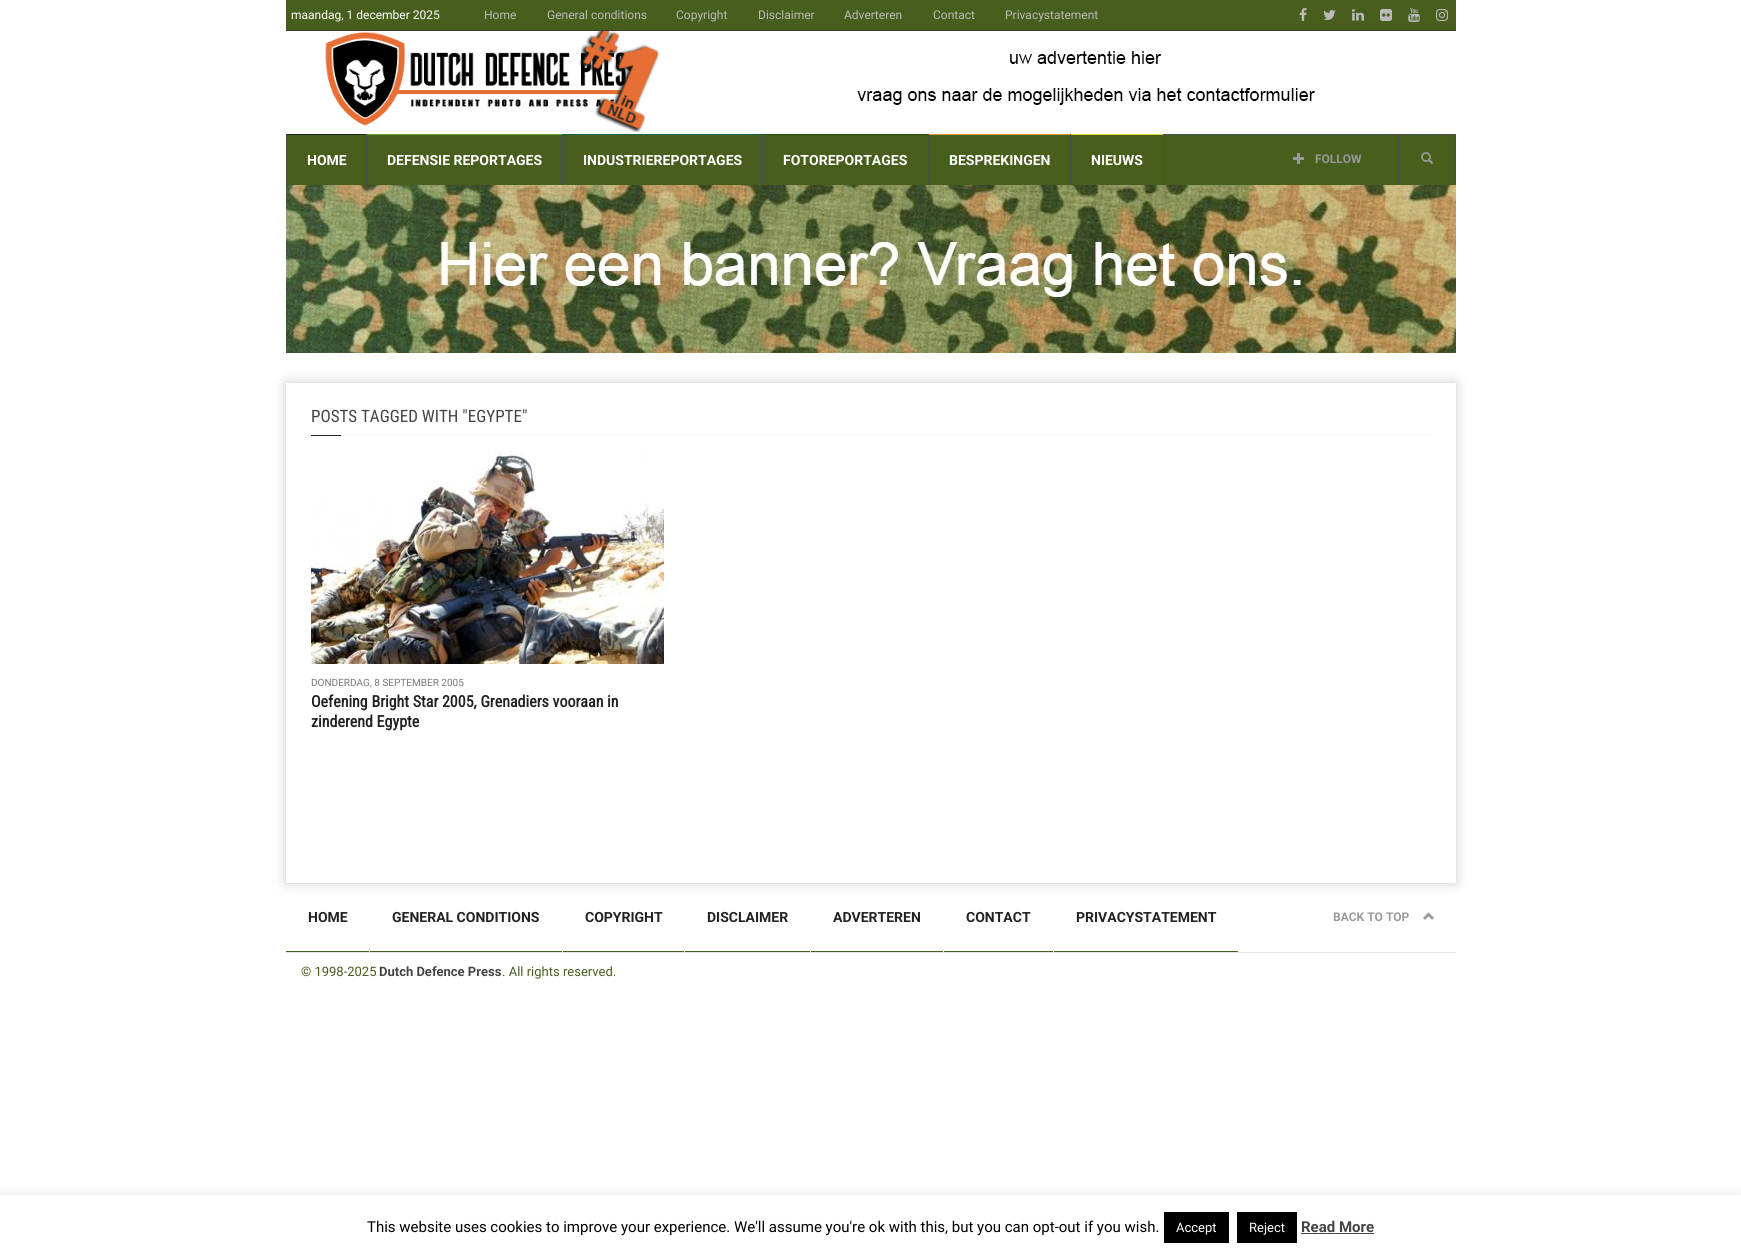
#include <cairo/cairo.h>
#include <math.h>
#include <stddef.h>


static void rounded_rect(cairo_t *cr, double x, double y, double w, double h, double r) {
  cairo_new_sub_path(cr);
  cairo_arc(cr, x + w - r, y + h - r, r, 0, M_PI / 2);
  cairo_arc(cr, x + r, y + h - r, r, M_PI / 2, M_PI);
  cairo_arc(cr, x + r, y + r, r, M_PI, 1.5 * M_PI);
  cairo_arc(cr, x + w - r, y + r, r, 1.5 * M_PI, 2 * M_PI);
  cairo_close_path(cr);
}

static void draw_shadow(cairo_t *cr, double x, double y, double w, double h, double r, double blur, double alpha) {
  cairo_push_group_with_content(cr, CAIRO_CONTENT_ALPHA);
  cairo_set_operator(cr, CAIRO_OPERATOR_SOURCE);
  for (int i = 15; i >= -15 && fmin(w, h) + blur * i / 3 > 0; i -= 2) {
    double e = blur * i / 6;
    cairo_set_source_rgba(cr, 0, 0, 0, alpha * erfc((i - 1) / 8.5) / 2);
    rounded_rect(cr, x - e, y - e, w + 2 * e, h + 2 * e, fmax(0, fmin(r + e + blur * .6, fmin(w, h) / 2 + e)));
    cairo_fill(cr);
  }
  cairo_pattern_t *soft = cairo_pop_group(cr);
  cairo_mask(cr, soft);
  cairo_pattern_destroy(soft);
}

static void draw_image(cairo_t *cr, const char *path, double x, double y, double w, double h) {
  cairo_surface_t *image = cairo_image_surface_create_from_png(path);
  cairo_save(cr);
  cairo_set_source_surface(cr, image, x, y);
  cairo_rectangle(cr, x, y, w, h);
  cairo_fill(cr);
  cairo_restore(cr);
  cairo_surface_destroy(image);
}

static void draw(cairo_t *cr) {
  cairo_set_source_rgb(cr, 1, 1, 1);
  cairo_paint(cr);
  cairo_set_source_rgb(cr, 71 / 255.0, 94 / 255.0, 29 / 255.0);
  cairo_rectangle(cr, 286, 0, 1170, 30);
  cairo_fill(cr);
  draw_image(cr, "images/1.png", 1299, 8, 8, 13);
  draw_image(cr, "images/2.png", 1323, 10, 13, 10);
  draw_image(cr, "images/3.png", 1352, 9, 12, 12);
  draw_image(cr, "images/4.png", 1380, 9, 12, 12);
  draw_image(cr, "images/5.png", 1408, 8, 12, 14);
  draw_image(cr, "images/6.png", 1436, 9, 12, 12);
  cairo_set_source_rgb(cr, 58 / 255.0, 58 / 255.0, 58 / 255.0);
  cairo_rectangle(cr, 286, 30, 1170, 1);
  cairo_fill(cr);
  cairo_set_source_rgb(cr, 77 / 255.0, 77 / 255.0, 77 / 255.0);
  cairo_rectangle(cr, 1164, 134, 292, 1);
  cairo_fill(cr);
  draw_image(cr, "images/7.png", 325, 31, 335, 101);
  draw_image(cr, "images/8.png", 857, 51, 458, 54);
  cairo_set_source_rgb(cr, 71 / 255.0, 94 / 255.0, 29 / 255.0);
  cairo_rectangle(cr, 287, 135, 1169, 50);
  cairo_fill(cr);
  cairo_set_source_rgb(cr, 77 / 255.0, 77 / 255.0, 77 / 255.0);
  cairo_rectangle(cr, 286, 134, 1, 51);
  cairo_fill(cr);
  cairo_rectangle(cr, 366, 134, 1, 51);
  cairo_fill(cr);
  cairo_set_source_rgb(cr, 34 / 255.0, 34 / 255.0, 34 / 255.0);
  cairo_rectangle(cr, 287, 134, 79, 1);
  cairo_fill(cr);
  cairo_set_source_rgb(cr, 77 / 255.0, 77 / 255.0, 77 / 255.0);
  cairo_rectangle(cr, 562, 134, 1, 51);
  cairo_fill(cr);
  cairo_set_source_rgb(cr, 99 / 255.0, 165 / 255.0, 51 / 255.0);
  cairo_rectangle(cr, 367, 134, 195, 1);
  cairo_fill(cr);
  cairo_set_source_rgb(cr, 77 / 255.0, 77 / 255.0, 77 / 255.0);
  cairo_rectangle(cr, 762, 134, 1, 51);
  cairo_fill(cr);
  cairo_set_source_rgb(cr, 4 / 255.0, 104 / 255.0, 84 / 255.0);
  cairo_rectangle(cr, 563, 134, 199, 1);
  cairo_fill(cr);
  cairo_set_source_rgb(cr, 77 / 255.0, 77 / 255.0, 77 / 255.0);
  cairo_rectangle(cr, 928, 134, 1, 51);
  cairo_fill(cr);
  cairo_set_source_rgb(cr, 32 / 255.0, 76 / 255.0, 12 / 255.0);
  cairo_rectangle(cr, 763, 134, 165, 1);
  cairo_fill(cr);
  cairo_set_source_rgb(cr, 77 / 255.0, 77 / 255.0, 77 / 255.0);
  cairo_rectangle(cr, 1070, 134, 1, 51);
  cairo_fill(cr);
  cairo_set_source_rgb(cr, 221 / 255.0, 153 / 255.0, 51 / 255.0);
  cairo_rectangle(cr, 929, 134, 141, 1);
  cairo_fill(cr);
  cairo_set_source_rgb(cr, 77 / 255.0, 77 / 255.0, 77 / 255.0);
  cairo_rectangle(cr, 1163, 134, 1, 51);
  cairo_fill(cr);
  cairo_set_source_rgb(cr, 221 / 255.0, 218 / 255.0, 31 / 255.0);
  cairo_rectangle(cr, 1071, 134, 92, 1);
  cairo_fill(cr);
  cairo_set_source_rgb(cr, 77 / 255.0, 77 / 255.0, 77 / 255.0);
  cairo_rectangle(cr, 1398, 134, 1, 51);
  cairo_fill(cr);
  draw_image(cr, "images/9.png", 1293, 153, 11, 11);
  cairo_rectangle(cr, 1455, 134, 1, 50);
  cairo_fill(cr);
  draw_image(cr, "images/10.png", 1421, 152, 12, 12);
  draw_image(cr, "images/11.png", 286, 185, 1170, 168);
  cairo_save(cr);
  cairo_set_fill_rule(cr, CAIRO_FILL_RULE_EVEN_ODD);
  cairo_new_path(cr);
  cairo_move_to(cr, 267, 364);
  cairo_line_to(cr, 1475, 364);
  cairo_line_to(cr, 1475, 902);
  cairo_line_to(cr, 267, 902);
  cairo_close_path(cr);
  cairo_move_to(cr, 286, 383);
  cairo_line_to(cr, 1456, 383);
  cairo_line_to(cr, 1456, 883);
  cairo_line_to(cr, 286, 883);
  cairo_close_path(cr);
  cairo_clip(cr);
  cairo_set_source_rgb(cr, 204 / 255.0, 204 / 255.0, 204 / 255.0);
  draw_shadow(cr, 286, 383, 1170, 500, 0, 6, 1);
  cairo_restore(cr);
  cairo_set_source_rgb(cr, 245 / 255.0, 245 / 255.0, 245 / 255.0);
  cairo_rectangle(cr, 341, 435, 1090, 1);
  cairo_fill(cr);
  cairo_set_source_rgb(cr, 34 / 255.0, 34 / 255.0, 34 / 255.0);
  cairo_rectangle(cr, 311, 435, 30, 1);
  cairo_fill(cr);
  draw_image(cr, "images/12.png", 311, 451, 353, 213);
  cairo_set_source_rgb(cr, 228 / 255.0, 228 / 255.0, 228 / 255.0);
  cairo_rectangle(cr, 286, 952, 1170, 1);
  cairo_fill(cr);
  cairo_set_source_rgb(cr, 71 / 255.0, 94 / 255.0, 29 / 255.0);
  cairo_rectangle(cr, 286, 951, 83, 1);
  cairo_fill(cr);
  cairo_rectangle(cr, 370, 951, 192, 1);
  cairo_fill(cr);
  cairo_rectangle(cr, 563, 951, 121, 1);
  cairo_fill(cr);
  cairo_rectangle(cr, 685, 951, 125, 1);
  cairo_fill(cr);
  cairo_rectangle(cr, 811, 951, 132, 1);
  cairo_fill(cr);
  cairo_rectangle(cr, 944, 951, 109, 1);
  cairo_fill(cr);
  cairo_rectangle(cr, 1054, 951, 184, 1);
  cairo_fill(cr);
  draw_image(cr, "images/13.png", 1423, 912, 11, 8);
  cairo_save(cr);
  cairo_rectangle(cr, 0, 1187, 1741, 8);
  cairo_clip(cr);
  cairo_set_source_rgb(cr, 172 / 255.0, 171 / 255.0, 171 / 255.0);
  draw_shadow(cr, 0, 1194, 1741, 60, 0, 5, 0.3);
  cairo_restore(cr);
  cairo_set_source_rgb(cr, 0, 0, 0);
  cairo_rectangle(cr, 1164, 1212, 65, 31);
  cairo_fill(cr);
  cairo_rectangle(cr, 1237, 1212, 60, 31);
  cairo_fill(cr);
  cairo_set_source_rgb(cr, 68 / 255.0, 68 / 255.0, 68 / 255.0);
  cairo_rectangle(cr, 1301, 1233, 73, 1);
  cairo_fill(cr);
  cairo_select_font_face(cr, "Roboto", CAIRO_FONT_SLANT_NORMAL, CAIRO_FONT_WEIGHT_NORMAL);
  cairo_set_font_size(cr, 12);
  cairo_set_source_rgb(cr, 1, 1, 1);
  cairo_move_to(cr, 291, 19);
  cairo_show_text(cr, "maandag, 1 december 2025");
  cairo_set_source_rgb(cr, 187 / 255.0, 187 / 255.0, 187 / 255.0);
  cairo_move_to(cr, 484, 19);
  cairo_show_text(cr, "Home");
  cairo_move_to(cr, 547, 19);
  cairo_show_text(cr, "General conditions");
  cairo_move_to(cr, 676, 19);
  cairo_show_text(cr, "Copyright");
  cairo_move_to(cr, 758, 19);
  cairo_show_text(cr, "Disclaimer");
  cairo_move_to(cr, 844, 19);
  cairo_show_text(cr, "Adverteren");
  cairo_move_to(cr, 933, 19);
  cairo_show_text(cr, "Contact");
  cairo_move_to(cr, 1005, 19);
  cairo_show_text(cr, "Privacystatement");
  cairo_select_font_face(cr, "Roboto", CAIRO_FONT_SLANT_NORMAL, CAIRO_FONT_WEIGHT_BOLD);
  cairo_set_font_size(cr, 14);
  cairo_set_source_rgb(cr, 1, 1, 1);
  cairo_move_to(cr, 307, 165);
  cairo_show_text(cr, "HOME");
  cairo_move_to(cr, 387, 165);
  cairo_show_text(cr, "DEFENSIE REPORTAGES");
  cairo_move_to(cr, 583, 165);
  cairo_show_text(cr, "INDUSTRIEREPORTAGES");
  cairo_move_to(cr, 783, 165);
  cairo_show_text(cr, "FOTOREPORTAGES");
  cairo_move_to(cr, 949, 165);
  cairo_show_text(cr, "BESPREKINGEN");
  cairo_move_to(cr, 1091, 165);
  cairo_show_text(cr, "NIEUWS");
  cairo_set_font_size(cr, 12);
  cairo_set_source_rgb(cr, 153 / 255.0, 153 / 255.0, 153 / 255.0);
  cairo_move_to(cr, 1315, 163);
  cairo_show_text(cr, "FOLLOW");
  cairo_select_font_face(cr, "Roboto Condensed", CAIRO_FONT_SLANT_NORMAL, CAIRO_FONT_WEIGHT_NORMAL);
  cairo_set_font_size(cr, 17);
  cairo_set_source_rgb(cr, 68 / 255.0, 68 / 255.0, 68 / 255.0);
  cairo_move_to(cr, 311, 422);
  cairo_show_text(cr, "POSTS TAGGED WITH \"EGYPTE\"");
  cairo_select_font_face(cr, "Roboto", CAIRO_FONT_SLANT_NORMAL, CAIRO_FONT_WEIGHT_NORMAL);
  cairo_set_font_size(cr, 10);
  cairo_set_source_rgb(cr, 119 / 255.0, 119 / 255.0, 119 / 255.0);
  cairo_move_to(cr, 311, 686);
  cairo_show_text(cr, "DONDERDAG, 8 SEPTEMBER 2005");
  cairo_select_font_face(cr, "Roboto Condensed", CAIRO_FONT_SLANT_NORMAL, CAIRO_FONT_WEIGHT_BOLD);
  cairo_set_font_size(cr, 16);
  cairo_set_source_rgb(cr, 34 / 255.0, 34 / 255.0, 34 / 255.0);
  cairo_move_to(cr, 311, 707);
  cairo_show_text(cr, "Oefening Bright Star 2005, Grenadiers vooraan in");
  cairo_move_to(cr, 311, 727);
  cairo_show_text(cr, "zinderend Egypte");
  cairo_select_font_face(cr, "Roboto", CAIRO_FONT_SLANT_NORMAL, CAIRO_FONT_WEIGHT_BOLD);
  cairo_set_font_size(cr, 14);
  cairo_move_to(cr, 308, 922);
  cairo_show_text(cr, "HOME");
  cairo_move_to(cr, 392, 922);
  cairo_show_text(cr, "GENERAL CONDITIONS");
  cairo_move_to(cr, 585, 922);
  cairo_show_text(cr, "COPYRIGHT");
  cairo_move_to(cr, 707, 922);
  cairo_show_text(cr, "DISCLAIMER");
  cairo_move_to(cr, 833, 922);
  cairo_show_text(cr, "ADVERTEREN");
  cairo_move_to(cr, 966, 922);
  cairo_show_text(cr, "CONTACT");
  cairo_move_to(cr, 1076, 922);
  cairo_show_text(cr, "PRIVACYSTATEMENT");
  cairo_set_font_size(cr, 12);
  cairo_set_source_rgb(cr, 153 / 255.0, 153 / 255.0, 153 / 255.0);
  cairo_move_to(cr, 1333, 921);
  cairo_show_text(cr, "BACK TO TOP");
  cairo_select_font_face(cr, "Roboto", CAIRO_FONT_SLANT_NORMAL, CAIRO_FONT_WEIGHT_NORMAL);
  cairo_set_font_size(cr, 13);
  cairo_set_source_rgb(cr, 71 / 255.0, 94 / 255.0, 29 / 255.0);
  cairo_move_to(cr, 301, 976);
  cairo_show_text(cr, "© 1998-2025");
  cairo_select_font_face(cr, "Roboto", CAIRO_FONT_SLANT_NORMAL, CAIRO_FONT_WEIGHT_BOLD);
  cairo_set_source_rgb(cr, 68 / 255.0, 68 / 255.0, 68 / 255.0);
  cairo_move_to(cr, 379, 976);
  cairo_show_text(cr, "Dutch Defence Press");
  cairo_select_font_face(cr, "Roboto", CAIRO_FONT_SLANT_NORMAL, CAIRO_FONT_WEIGHT_NORMAL);
  cairo_set_source_rgb(cr, 71 / 255.0, 94 / 255.0, 29 / 255.0);
  cairo_move_to(cr, 502, 976);
  cairo_show_text(cr, ". All rights reserved.");
  cairo_set_font_size(cr, 15);
  cairo_set_source_rgb(cr, 0, 0, 0);
  cairo_move_to(cr, 367, 1232);
  cairo_show_text(cr, "This website uses cookies to improve your experience. We'll assume you're ok with this, but you can opt-out if you wish.");
  cairo_set_font_size(cr, 13);
  cairo_set_source_rgb(cr, 1, 1, 1);
  cairo_move_to(cr, 1176, 1232);
  cairo_show_text(cr, "Accept");
  cairo_move_to(cr, 1249, 1232);
  cairo_show_text(cr, "Reject");
  cairo_select_font_face(cr, "Roboto", CAIRO_FONT_SLANT_NORMAL, CAIRO_FONT_WEIGHT_BOLD);
  cairo_set_font_size(cr, 15);
  cairo_set_source_rgb(cr, 68 / 255.0, 68 / 255.0, 68 / 255.0);
  cairo_move_to(cr, 1301, 1232);
  cairo_show_text(cr, "Read More");
}

int main(void) {
  cairo_surface_t *surface = cairo_image_surface_create(CAIRO_FORMAT_RGB24, 1741, 1255);
  cairo_t *cr = cairo_create(surface);
  cairo_font_options_t *options = cairo_font_options_create();
  cairo_font_options_set_hint_metrics(options, CAIRO_HINT_METRICS_OFF);
  cairo_font_options_set_hint_style(options, CAIRO_HINT_STYLE_NONE);
  cairo_set_font_options(cr, options);
  cairo_set_miter_limit(cr, 4);
  draw(cr);
  cairo_surface_write_to_png(surface, "out.png");
  cairo_font_options_destroy(options);
  cairo_destroy(cr);
  cairo_surface_destroy(surface);
  return 0;
}
